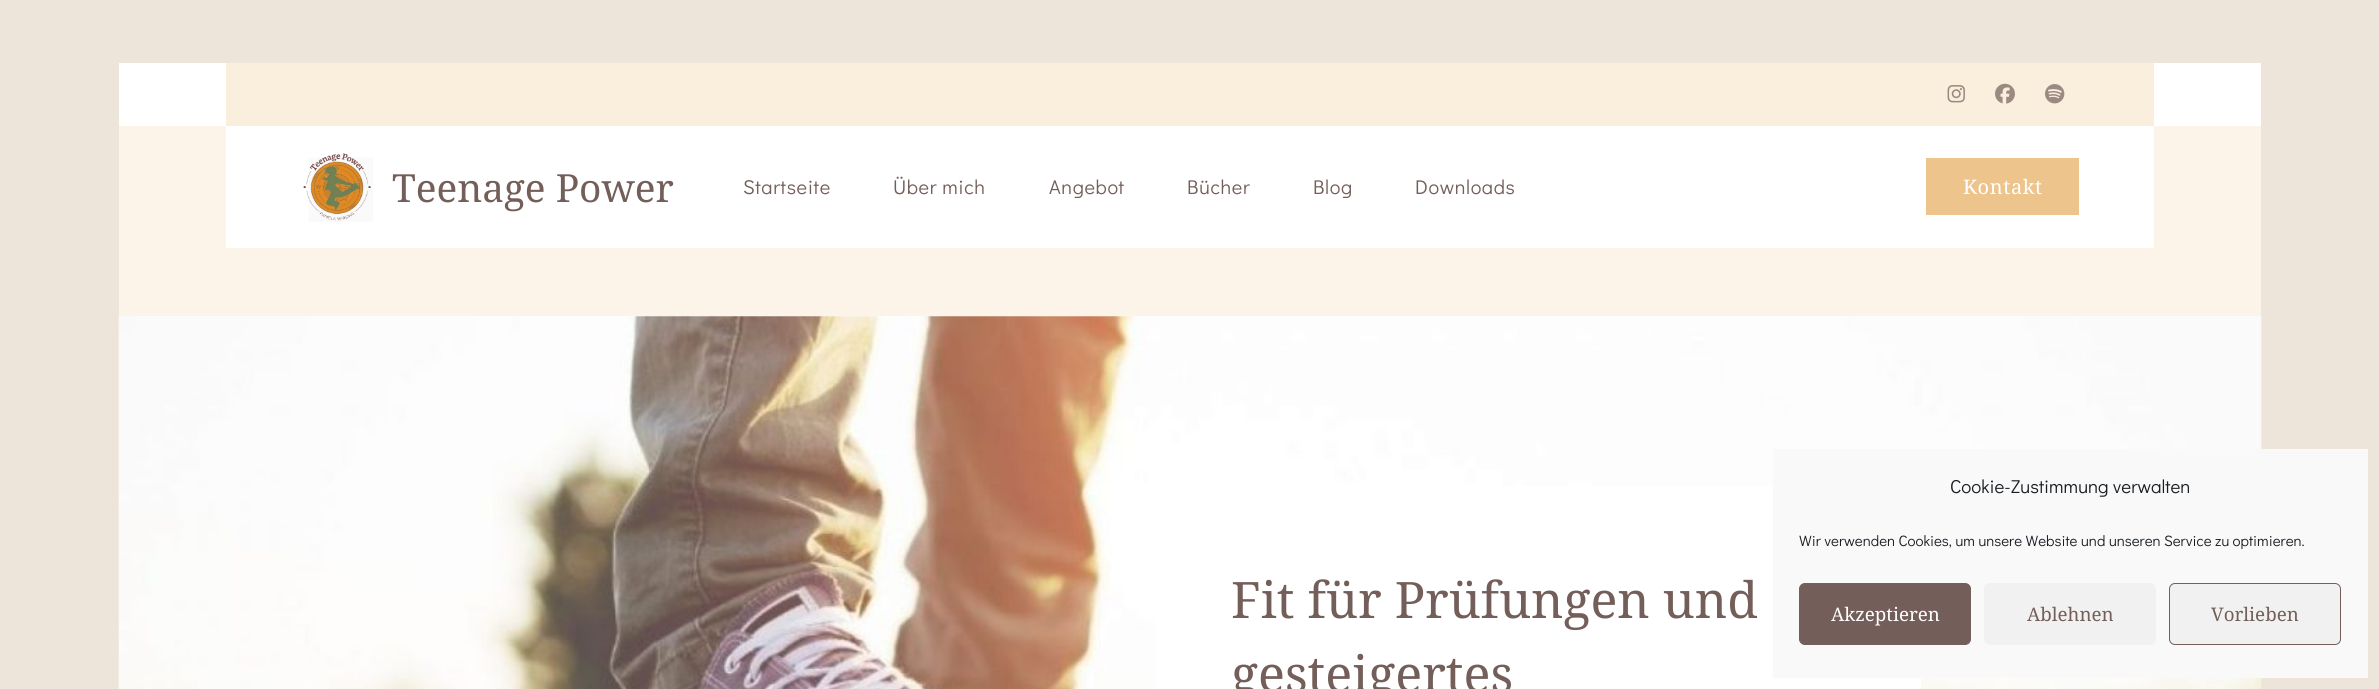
#include <cairo/cairo.h>
#include <math.h>
#include <stddef.h>


static void draw_spaced(cairo_t *cr, double x, double y, const char *s, double letter, double word) {
  cairo_move_to(cr, x, y);
  while (*s) {
    char ch[5] = {0};
    int n = 0;
    do ch[n++] = *s++; while ((*s & 0xC0) == 0x80);
    cairo_show_text(cr, ch);
    cairo_rel_move_to(cr, letter + word * (*ch == ' '), 0);
  }
}

static void rounded_rect(cairo_t *cr, double x, double y, double w, double h, double r) {
  cairo_new_sub_path(cr);
  cairo_arc(cr, x + w - r, y + h - r, r, 0, M_PI / 2);
  cairo_arc(cr, x + r, y + h - r, r, M_PI / 2, M_PI);
  cairo_arc(cr, x + r, y + r, r, M_PI, 1.5 * M_PI);
  cairo_arc(cr, x + w - r, y + r, r, 1.5 * M_PI, 2 * M_PI);
  cairo_close_path(cr);
}

static void draw_image(cairo_t *cr, const char *path, double x, double y, double w, double h) {
  cairo_surface_t *image = cairo_image_surface_create_from_png(path);
  cairo_save(cr);
  cairo_set_source_surface(cr, image, x, y);
  cairo_rectangle(cr, x, y, w, h);
  cairo_fill(cr);
  cairo_restore(cr);
  cairo_surface_destroy(image);
}

static void draw(cairo_t *cr) {
  cairo_set_source_rgb(cr, 237 / 255.0, 229 / 255.0, 218 / 255.0);
  cairo_paint(cr);
  cairo_set_source_rgb(cr, 1, 1, 1);
  cairo_rectangle(cr, 119, 63, 2142, 254);
  cairo_fill(cr);
  cairo_set_source_rgb(cr, 252 / 255.0, 244 / 255.0, 232 / 255.0);
  cairo_rectangle(cr, 119, 126, 2142, 190);
  cairo_fill(cr);
  cairo_set_source_rgb(cr, 1, 1, 1);
  cairo_rectangle(cr, 226, 126, 1928, 122);
  cairo_fill(cr);
  cairo_set_source_rgb(cr, 250 / 255.0, 238 / 255.0, 221 / 255.0);
  cairo_rectangle(cr, 226, 63, 1928, 63);
  cairo_fill(cr);
  draw_image(cr, "images/1.png", 1947, 85, 18, 18);
  draw_image(cr, "images/2.png", 1995, 83, 20, 21);
  draw_image(cr, "images/3.png", 2045, 84, 20, 20);
  draw_image(cr, "images/4.png", 303, 153, 70, 69);
  cairo_set_source_rgb(cr, 237 / 255.0, 196 / 255.0, 139 / 255.0);
  cairo_rectangle(cr, 1926, 158, 153, 57);
  cairo_fill(cr);
  draw_image(cr, "images/5.png", 118, 316, 2144, 373);
  cairo_set_source_rgb(cr, 1, 1, 1);
  cairo_rectangle(cr, 1156, 486, 765, 203);
  cairo_fill(cr);
  cairo_set_source_rgb(cr, 249 / 255.0, 249 / 255.0, 249 / 255.0);
  cairo_rectangle(cr, 1773, 449, 595, 229);
  cairo_fill(cr);
  cairo_set_source_rgb(cr, 115 / 255.0, 94 / 255.0, 89 / 255.0);
  rounded_rect(cr, 1799.5, 583.5, 171, 61, 5.5);
  cairo_fill_preserve(cr);
  cairo_set_line_width(cr, 1);
  cairo_stroke(cr);
  cairo_set_source_rgb(cr, 241 / 255.0, 241 / 255.0, 241 / 255.0);
  rounded_rect(cr, 1984, 583, 172, 62, 6);
  cairo_fill(cr);
  rounded_rect(cr, 2169.5, 583.5, 171, 61, 5.5);
  cairo_fill_preserve(cr);
  cairo_set_source_rgb(cr, 115 / 255.0, 94 / 255.0, 89 / 255.0);
  cairo_stroke(cr);
  cairo_select_font_face(cr, "Noto Serif", CAIRO_FONT_SLANT_NORMAL, CAIRO_FONT_WEIGHT_NORMAL);
  cairo_set_font_size(cr, 38.75);
  cairo_move_to(cr, 392, 202);
  cairo_show_text(cr, "Teenage Power");
  cairo_select_font_face(cr, "Didact Gothic", CAIRO_FONT_SLANT_NORMAL, CAIRO_FONT_WEIGHT_NORMAL);
  cairo_set_font_size(cr, 20);
  draw_spaced(cr, 743, 194, "Startseite", 0.6, 0);
  draw_spaced(cr, 893, 194, "Über mich", 0.6, 0);
  draw_spaced(cr, 1049, 194, "Angebot", 0.6, 0);
  draw_spaced(cr, 1187, 194, "Bücher", 0.6, 0);
  draw_spaced(cr, 1313, 194, "Blog", 0.6, 0);
  draw_spaced(cr, 1415, 194, "Downloads", 0.6, 0);
  cairo_select_font_face(cr, "Noto Serif", CAIRO_FONT_SLANT_NORMAL, CAIRO_FONT_WEIGHT_NORMAL);
  cairo_set_source_rgb(cr, 1, 1, 1);
  draw_spaced(cr, 1963, 194, "Kontakt", 0.6, 0);
  cairo_set_font_size(cr, 50.25);
  cairo_set_source_rgb(cr, 115 / 255.0, 94 / 255.0, 89 / 255.0);
  cairo_move_to(cr, 1231, 618);
  cairo_show_text(cr, "Fit für Prüfungen und");
  cairo_move_to(cr, 1231, 692);
  cairo_show_text(cr, "gesteigertes");
  cairo_select_font_face(cr, "Didact Gothic", CAIRO_FONT_SLANT_NORMAL, CAIRO_FONT_WEIGHT_NORMAL);
  cairo_set_font_size(cr, 18.75);
  cairo_set_source_rgb(cr, 25 / 255.0, 30 / 255.0, 35 / 255.0);
  cairo_move_to(cr, 1950, 493);
  cairo_show_text(cr, "Cookie-Zustimmung verwalten");
  cairo_set_font_size(cr, 15);
  cairo_move_to(cr, 1799, 546);
  cairo_show_text(cr, "Wir verwenden Cookies, um unsere Website und unseren Service zu optimieren.");
  cairo_select_font_face(cr, "Noto Serif", CAIRO_FONT_SLANT_NORMAL, CAIRO_FONT_WEIGHT_NORMAL);
  cairo_set_font_size(cr, 18.75);
  cairo_set_source_rgb(cr, 1, 1, 1);
  cairo_move_to(cr, 1831, 621);
  cairo_show_text(cr, "Akzeptieren");
  cairo_set_source_rgb(cr, 115 / 255.0, 94 / 255.0, 89 / 255.0);
  cairo_move_to(cr, 2027, 621);
  cairo_show_text(cr, "Ablehnen");
  cairo_move_to(cr, 2211, 621);
  cairo_show_text(cr, "Vorlieben");
}

int main(void) {
  cairo_surface_t *surface = cairo_image_surface_create(CAIRO_FORMAT_RGB24, 2379, 689);
  cairo_t *cr = cairo_create(surface);
  cairo_font_options_t *options = cairo_font_options_create();
  cairo_font_options_set_hint_metrics(options, CAIRO_HINT_METRICS_OFF);
  cairo_font_options_set_hint_style(options, CAIRO_HINT_STYLE_NONE);
  cairo_set_font_options(cr, options);
  cairo_set_miter_limit(cr, 4);
  draw(cr);
  cairo_surface_write_to_png(surface, "out.png");
  cairo_font_options_destroy(options);
  cairo_destroy(cr);
  cairo_surface_destroy(surface);
  return 0;
}
